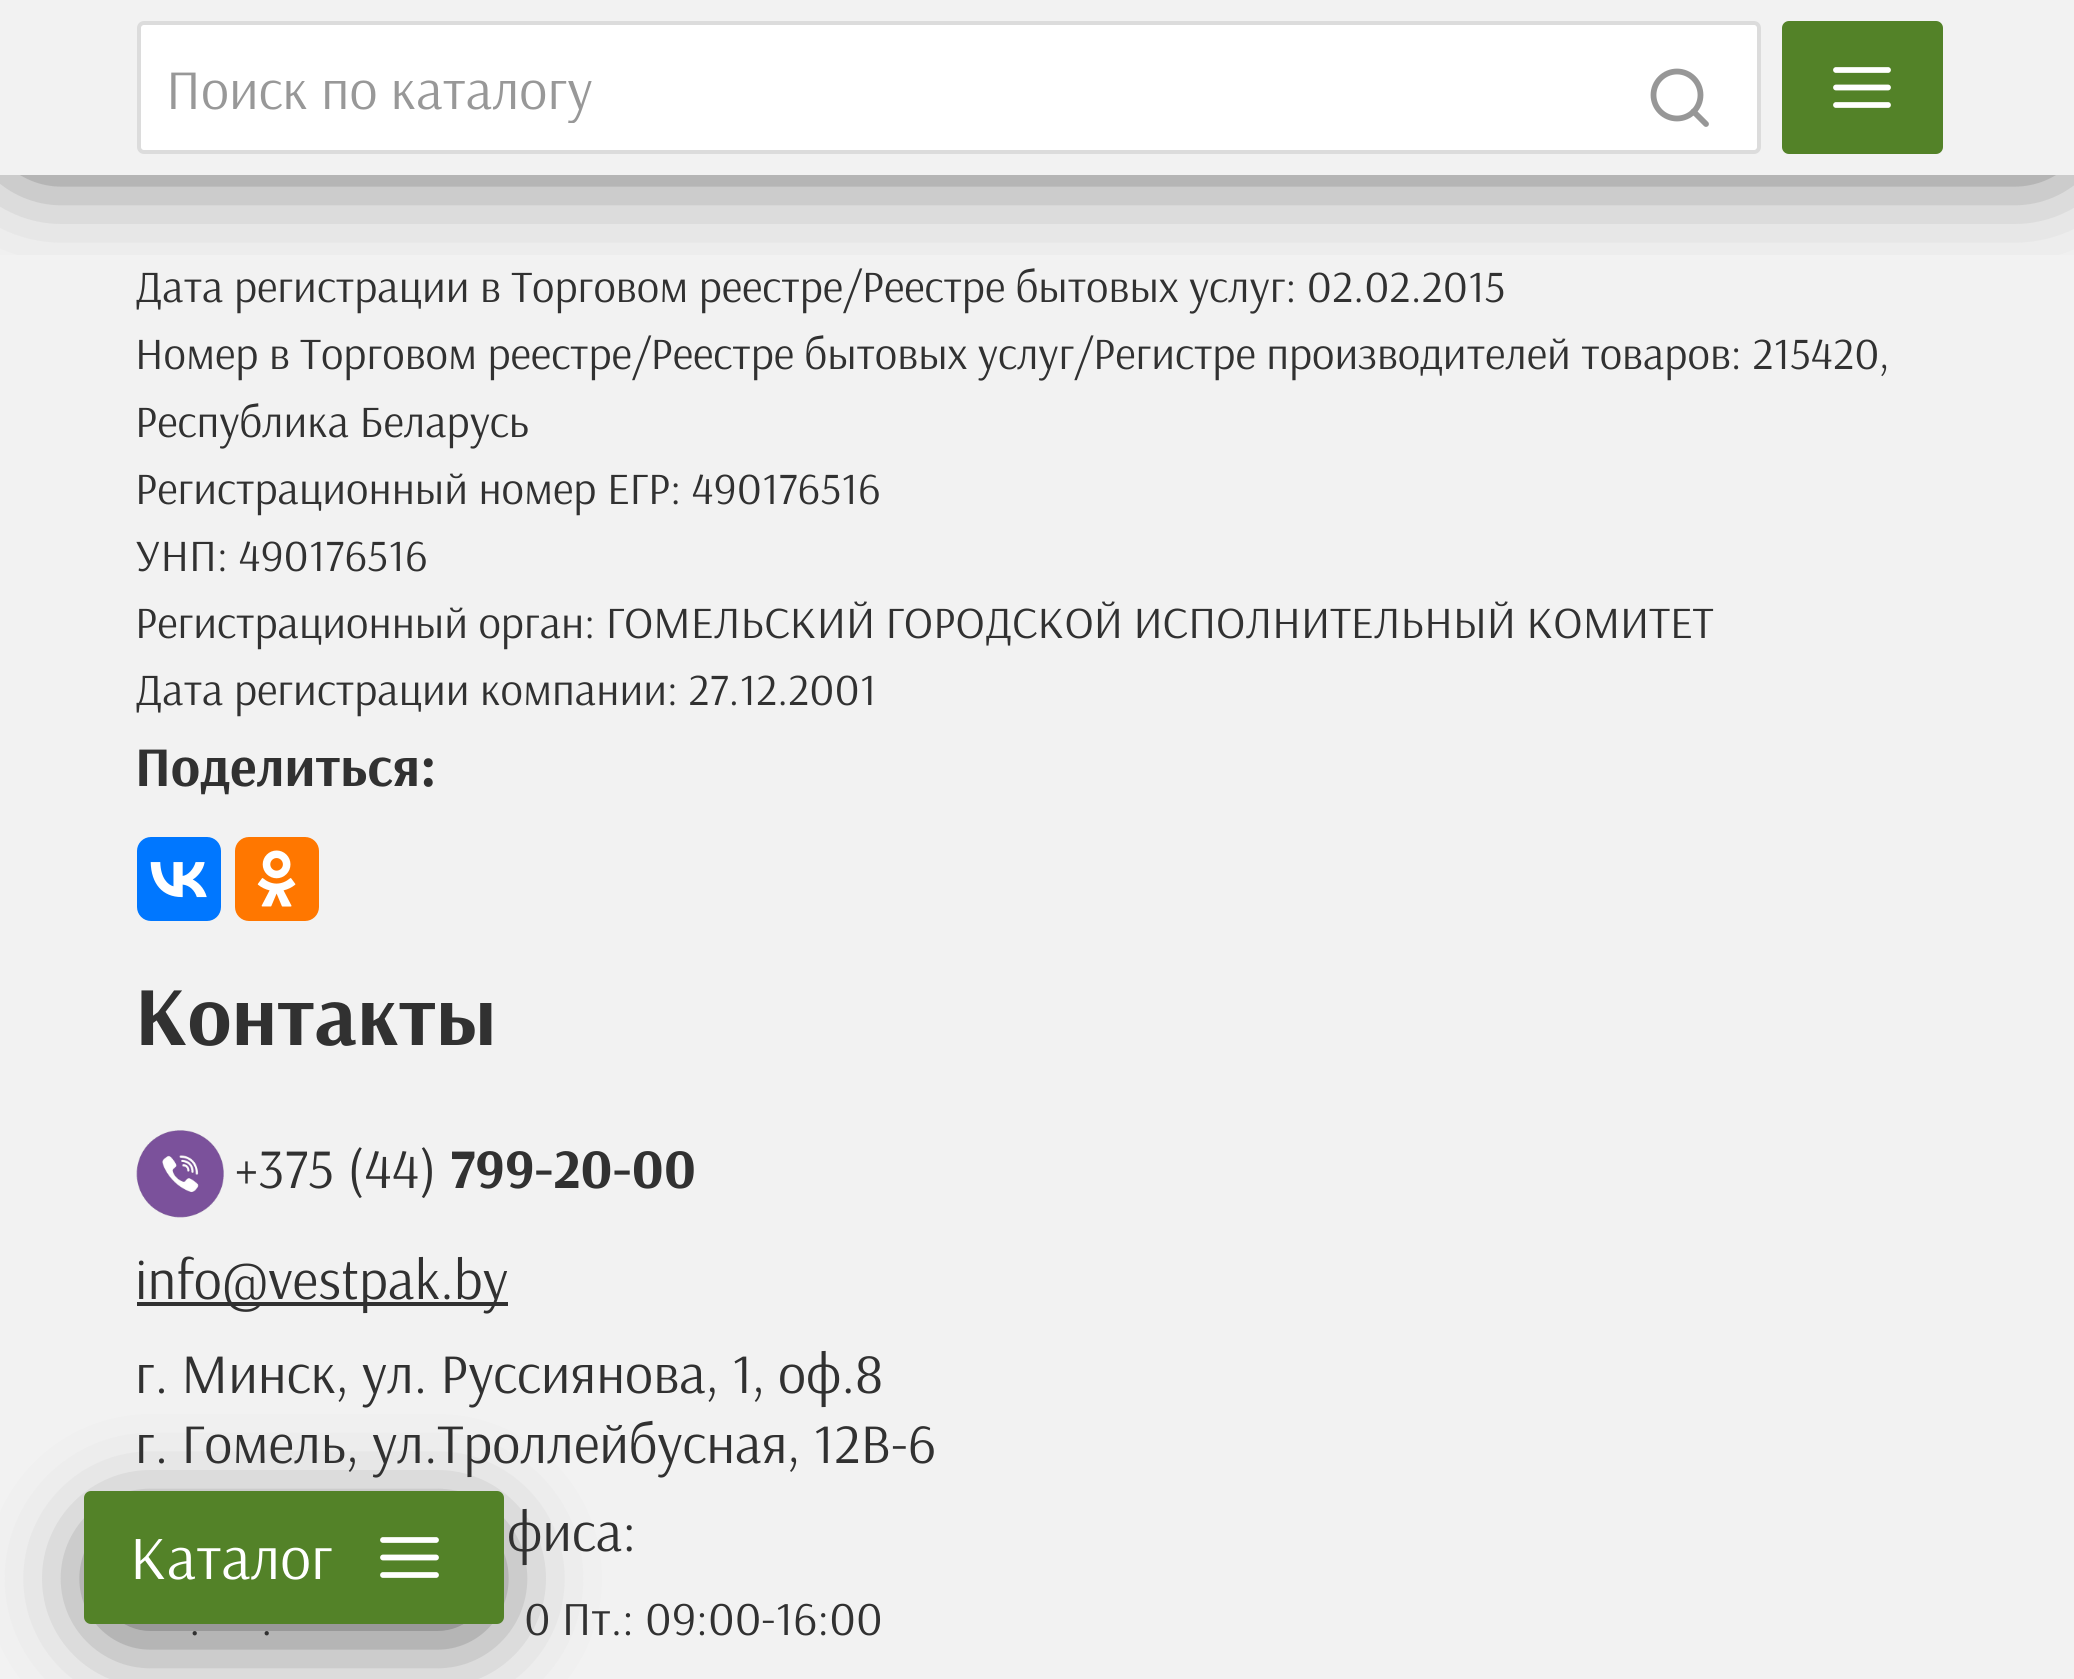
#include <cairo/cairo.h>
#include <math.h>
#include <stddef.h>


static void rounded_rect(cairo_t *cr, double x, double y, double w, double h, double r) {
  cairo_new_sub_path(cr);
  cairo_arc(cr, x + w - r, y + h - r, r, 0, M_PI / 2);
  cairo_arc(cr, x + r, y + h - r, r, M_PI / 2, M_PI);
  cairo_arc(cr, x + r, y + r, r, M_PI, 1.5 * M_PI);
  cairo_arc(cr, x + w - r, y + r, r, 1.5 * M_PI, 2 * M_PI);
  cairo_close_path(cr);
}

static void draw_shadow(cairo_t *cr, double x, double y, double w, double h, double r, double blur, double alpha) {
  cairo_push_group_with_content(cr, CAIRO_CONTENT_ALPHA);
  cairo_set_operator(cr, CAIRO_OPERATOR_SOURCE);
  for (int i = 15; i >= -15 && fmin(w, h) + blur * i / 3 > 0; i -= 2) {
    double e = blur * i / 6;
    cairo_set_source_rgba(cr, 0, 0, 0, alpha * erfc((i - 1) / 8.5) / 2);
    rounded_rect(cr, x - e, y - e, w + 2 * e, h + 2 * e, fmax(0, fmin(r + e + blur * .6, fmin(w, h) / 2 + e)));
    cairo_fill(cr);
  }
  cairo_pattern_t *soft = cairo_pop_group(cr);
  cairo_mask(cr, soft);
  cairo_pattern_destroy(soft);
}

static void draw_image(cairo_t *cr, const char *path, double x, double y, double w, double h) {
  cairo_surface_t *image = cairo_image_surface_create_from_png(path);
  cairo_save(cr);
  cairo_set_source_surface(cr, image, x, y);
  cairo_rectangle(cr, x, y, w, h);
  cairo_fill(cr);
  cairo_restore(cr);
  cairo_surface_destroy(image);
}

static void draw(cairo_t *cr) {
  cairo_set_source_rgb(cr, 242 / 255.0, 242 / 255.0, 242 / 255.0);
  cairo_paint(cr);
  cairo_set_source_rgb(cr, 1, 1, 1);
  rounded_rect(cr, 139, 23, 1620, 129, 5);
  cairo_fill_preserve(cr);
  cairo_set_source_rgb(cr, 220 / 255.0, 220 / 255.0, 220 / 255.0);
  cairo_set_line_width(cr, 4);
  cairo_stroke(cr);
  cairo_set_source_rgb(cr, 83 / 255.0, 130 / 255.0, 40 / 255.0);
  rounded_rect(cr, 1784, 23, 157, 129, 5);
  cairo_fill_preserve(cr);
  cairo_stroke(cr);
  cairo_new_path(cr);
  cairo_move_to(cr, 1836, 87.5);
  cairo_line_to(cr, 1888, 87.5);
  cairo_move_to(cr, 1836, 70);
  cairo_line_to(cr, 1888, 70);
  cairo_move_to(cr, 1836, 105);
  cairo_line_to(cr, 1888, 105);
  cairo_set_source_rgb(cr, 1, 1, 1);
  cairo_set_line_width(cr, 5.8);
  cairo_set_line_cap(cr, CAIRO_LINE_CAP_ROUND);
  cairo_set_line_join(cr, CAIRO_LINE_JOIN_ROUND);
  cairo_stroke(cr);
  cairo_save(cr);
  cairo_rectangle(cr, 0, 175, 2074, 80);
  cairo_clip(cr);
  cairo_set_source_rgb(cr, 0, 0, 0);
  draw_shadow(cr, 28, 21, 2020, 119, 0, 56, 1);
  cairo_restore(cr);
  cairo_arc(cr, 1677, 95, 23.5, 0, 2 * M_PI);
  cairo_set_source_rgb(cr, 151 / 255.0, 151 / 255.0, 151 / 255.0);
  cairo_set_line_cap(cr, CAIRO_LINE_CAP_BUTT);
  cairo_set_line_join(cr, CAIRO_LINE_JOIN_MITER);
  cairo_stroke(cr);
  cairo_new_path(cr);
  cairo_move_to(cr, 1706, 124);
  cairo_line_to(cr, 1693.5, 111.5);
  cairo_set_line_cap(cr, CAIRO_LINE_CAP_ROUND);
  cairo_set_line_join(cr, CAIRO_LINE_JOIN_ROUND);
  cairo_stroke(cr);
  cairo_set_source_rgb(cr, 0, 119 / 255.0, 1);
  rounded_rect(cr, 137, 837, 84, 84, 14);
  cairo_fill(cr);
  draw_image(cr, "images/1.png", 150, 862, 57, 36);
  cairo_set_source_rgb(cr, 1, 119 / 255.0, 0);
  rounded_rect(cr, 235, 837, 84, 84, 14);
  cairo_fill(cr);
  draw_image(cr, "images/2.png", 257, 850, 39, 57);
  draw_image(cr, "images/3.png", 136, 1130, 88, 88);
  cairo_set_source_rgb(cr, 49 / 255.0, 49 / 255.0, 49 / 255.0);
  cairo_rectangle(cr, 137, 1302, 371, 4);
  cairo_fill(cr);
  cairo_set_source_rgb(cr, 0, 0, 0);
  draw_shadow(cr, 126, 1554, 336, 49, 0, 56, 1);
  cairo_set_source_rgb(cr, 83 / 255.0, 130 / 255.0, 40 / 255.0);
  rounded_rect(cr, 86, 1493, 416, 129, 5);
  cairo_fill_preserve(cr);
  cairo_set_line_width(cr, 4);
  cairo_set_line_cap(cr, CAIRO_LINE_CAP_BUTT);
  cairo_set_line_join(cr, CAIRO_LINE_JOIN_MITER);
  cairo_stroke(cr);
  cairo_new_path(cr);
  cairo_move_to(cr, 383, 1557.5);
  cairo_line_to(cr, 436, 1557.5);
  cairo_move_to(cr, 383, 1540);
  cairo_line_to(cr, 436, 1540);
  cairo_move_to(cr, 383, 1575);
  cairo_line_to(cr, 436, 1575);
  cairo_set_source_rgb(cr, 1, 1, 1);
  cairo_set_line_width(cr, 5.8);
  cairo_set_line_cap(cr, CAIRO_LINE_CAP_ROUND);
  cairo_set_line_join(cr, CAIRO_LINE_JOIN_ROUND);
  cairo_stroke(cr);
  cairo_save(cr);
  cairo_rectangle(cr, 168, 53, 1561, 70);
  cairo_clip(cr);
  cairo_select_font_face(cr, "Arsenal", CAIRO_FONT_SLANT_NORMAL, CAIRO_FONT_WEIGHT_NORMAL);
  cairo_set_font_size(cr, 56);
  cairo_set_source_rgb(cr, 152 / 255.0, 152 / 255.0, 152 / 255.0);
  cairo_move_to(cr, 166, 109);
  cairo_show_text(cr, "Поиск по каталогу");
  cairo_restore(cr);
  cairo_select_font_face(cr, "Arsenal", CAIRO_FONT_SLANT_NORMAL, CAIRO_FONT_WEIGHT_NORMAL);
  cairo_set_font_size(cr, 44.8);
  cairo_set_source_rgb(cr, 49 / 255.0, 49 / 255.0, 49 / 255.0);
  cairo_move_to(cr, 135, 302);
  cairo_show_text(cr, "Дата регистрации в Торговом реестре/Реестре бытовых услуг: 02.02.2015");
  cairo_move_to(cr, 135, 369);
  cairo_show_text(cr, "Номер в Торговом реестре/Реестре бытовых услуг/Регистре производителей товаров: 215420,");
  cairo_move_to(cr, 135, 437);
  cairo_show_text(cr, "Республика Беларусь");
  cairo_move_to(cr, 135, 504);
  cairo_show_text(cr, "Регистрационный номер ЕГР: 490176516");
  cairo_move_to(cr, 135, 571);
  cairo_show_text(cr, "УНП: 490176516");
  cairo_move_to(cr, 135, 638);
  cairo_show_text(cr, "Регистрационный орган: ГОМЕЛЬСКИЙ ГОРОДСКОЙ ИСПОЛНИТЕЛЬНЫЙ КОМИТЕТ");
  cairo_move_to(cr, 135, 705);
  cairo_show_text(cr, "Дата регистрации компании: 27.12.2001");
  cairo_select_font_face(cr, "Arsenal", CAIRO_FONT_SLANT_NORMAL, CAIRO_FONT_WEIGHT_BOLD);
  cairo_set_font_size(cr, 56);
  cairo_move_to(cr, 135, 786);
  cairo_show_text(cr, "Поделиться:");
  cairo_set_font_size(cr, 84);
  cairo_move_to(cr, 135, 1045);
  cairo_show_text(cr, "Контакты");
  cairo_select_font_face(cr, "Arsenal", CAIRO_FONT_SLANT_NORMAL, CAIRO_FONT_WEIGHT_NORMAL);
  cairo_set_font_size(cr, 56);
  cairo_move_to(cr, 235, 1188);
  cairo_show_text(cr, "+375 (44)");
  cairo_select_font_face(cr, "Arsenal", CAIRO_FONT_SLANT_NORMAL, CAIRO_FONT_WEIGHT_BOLD);
  cairo_move_to(cr, 450, 1188);
  cairo_show_text(cr, "799-20-00");
  cairo_select_font_face(cr, "Arsenal", CAIRO_FONT_SLANT_NORMAL, CAIRO_FONT_WEIGHT_NORMAL);
  cairo_move_to(cr, 135, 1299);
  cairo_show_text(cr, "info@vestpak.by");
  cairo_move_to(cr, 135, 1393);
  cairo_show_text(cr, "г. Минск, ул. Руссиянова, 1, оф.8");
  cairo_move_to(cr, 135, 1463);
  cairo_show_text(cr, "г. Гомель, ул.Троллейбусная, 12В-6");
  cairo_move_to(cr, 507, 1551);
  cairo_show_text(cr, "фиса:");
  cairo_set_font_size(cr, 47.5);
  cairo_move_to(cr, 189, 1635);
  cairo_show_text(cr, ".");
  cairo_move_to(cr, 261, 1635);
  cairo_show_text(cr, ".");
  cairo_move_to(cr, 524, 1635);
  cairo_show_text(cr, "0 Пт.: 09:00-16:00");
  cairo_set_font_size(cr, 61.5);
  cairo_set_source_rgb(cr, 1, 1, 1);
  cairo_move_to(cr, 130, 1579);
  cairo_show_text(cr, "Каталог");
}

int main(void) {
  cairo_surface_t *surface = cairo_image_surface_create(CAIRO_FORMAT_RGB24, 2074, 1679);
  cairo_t *cr = cairo_create(surface);
  cairo_font_options_t *options = cairo_font_options_create();
  cairo_font_options_set_hint_metrics(options, CAIRO_HINT_METRICS_OFF);
  cairo_font_options_set_hint_style(options, CAIRO_HINT_STYLE_NONE);
  cairo_set_font_options(cr, options);
  cairo_set_miter_limit(cr, 4);
  draw(cr);
  cairo_surface_write_to_png(surface, "out.png");
  cairo_font_options_destroy(options);
  cairo_destroy(cr);
  cairo_surface_destroy(surface);
  return 0;
}
